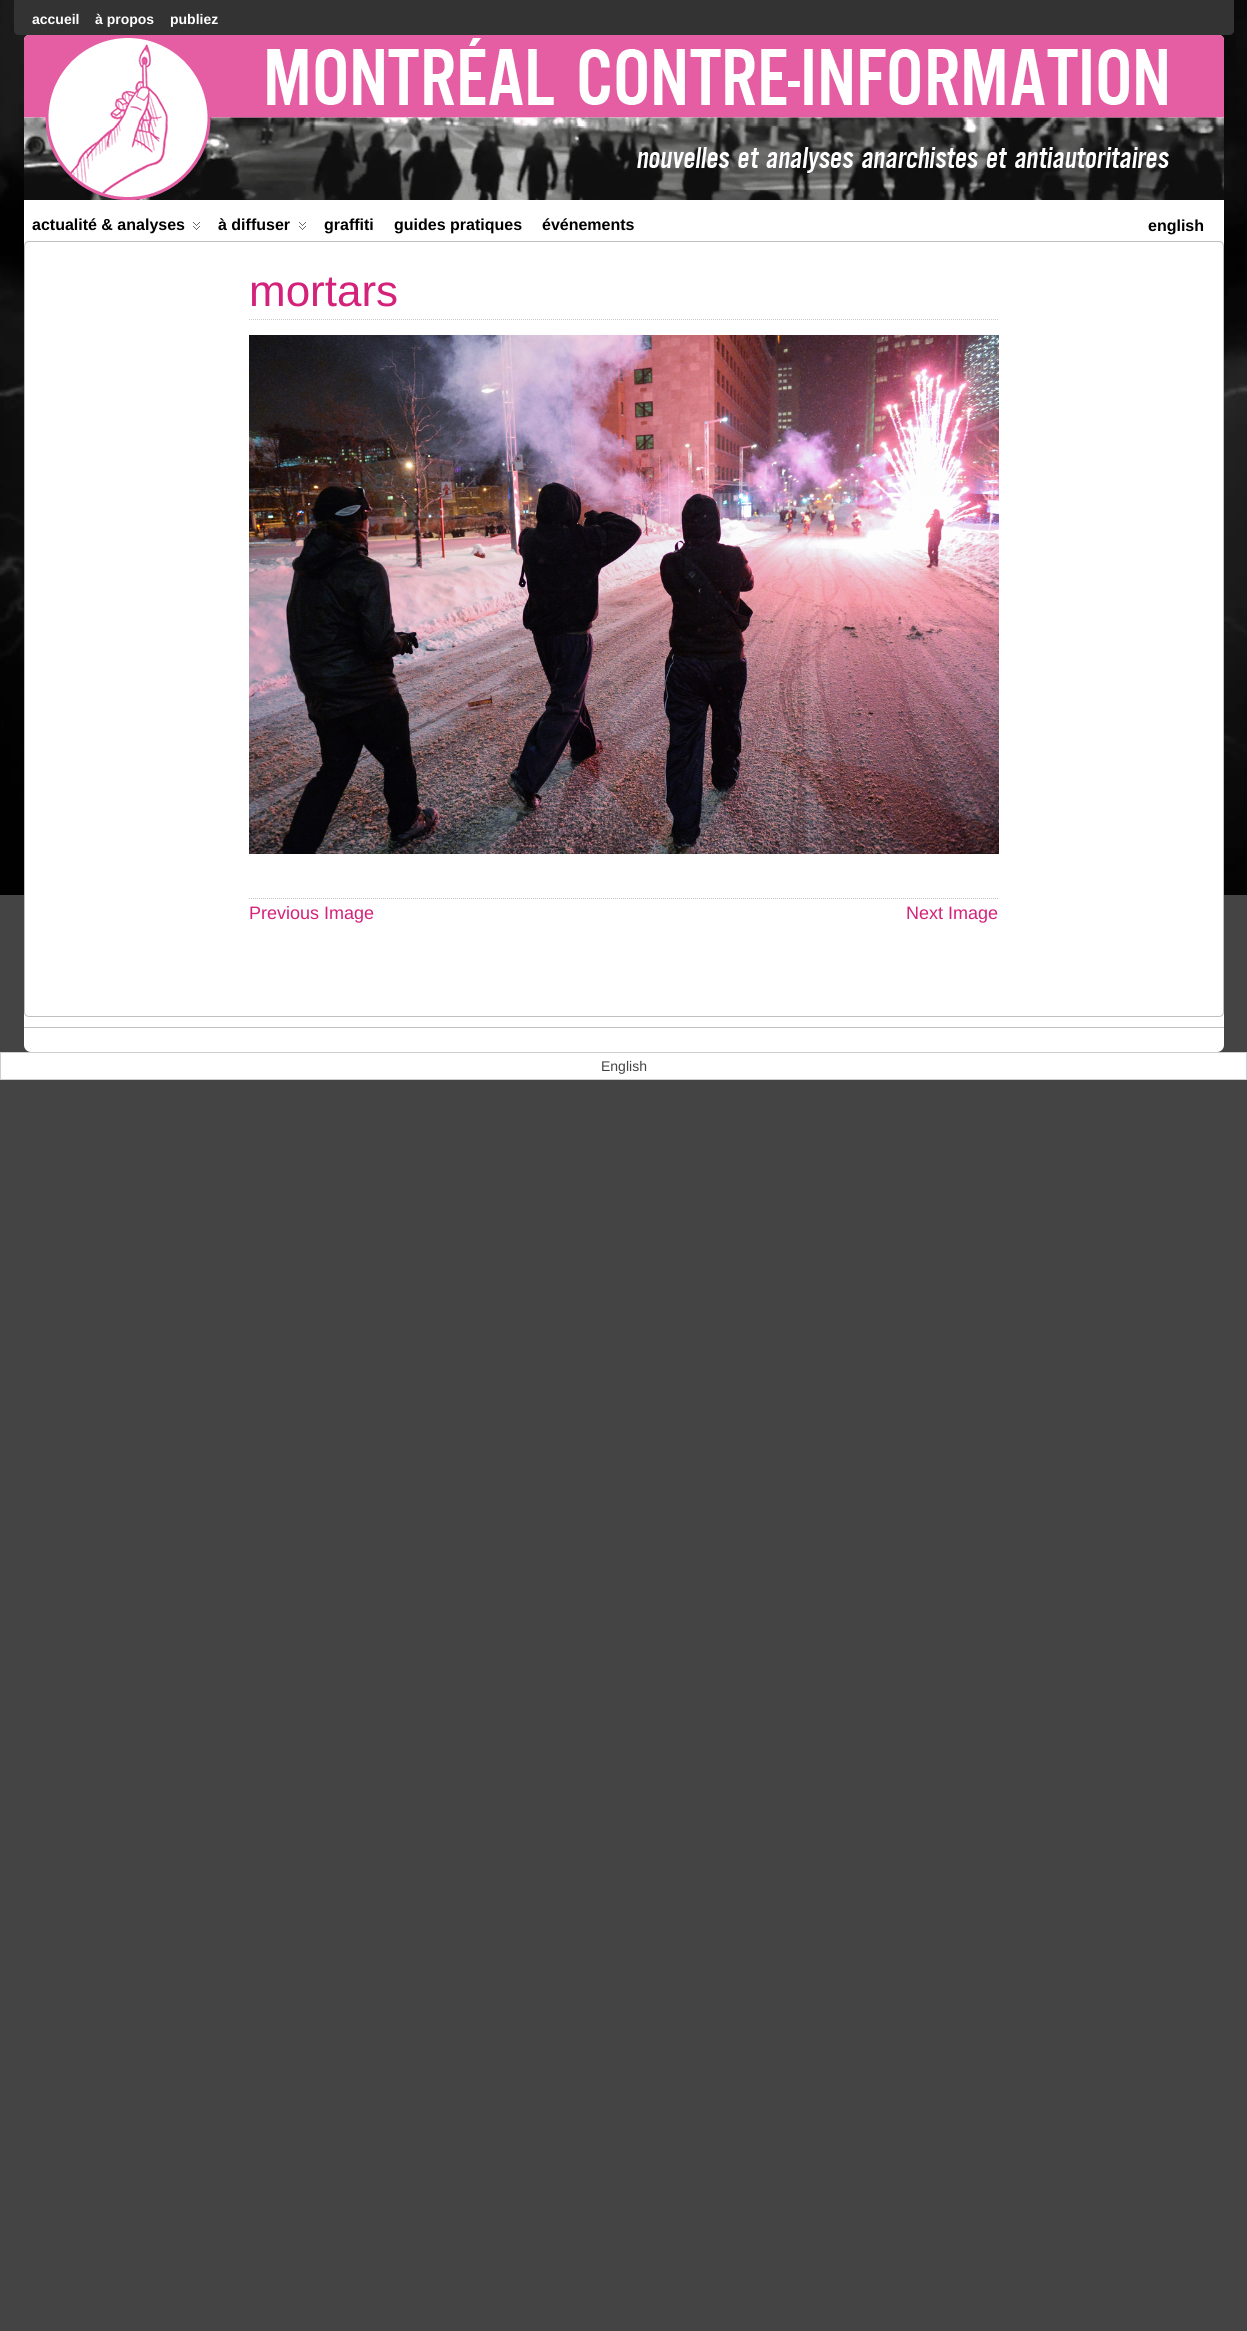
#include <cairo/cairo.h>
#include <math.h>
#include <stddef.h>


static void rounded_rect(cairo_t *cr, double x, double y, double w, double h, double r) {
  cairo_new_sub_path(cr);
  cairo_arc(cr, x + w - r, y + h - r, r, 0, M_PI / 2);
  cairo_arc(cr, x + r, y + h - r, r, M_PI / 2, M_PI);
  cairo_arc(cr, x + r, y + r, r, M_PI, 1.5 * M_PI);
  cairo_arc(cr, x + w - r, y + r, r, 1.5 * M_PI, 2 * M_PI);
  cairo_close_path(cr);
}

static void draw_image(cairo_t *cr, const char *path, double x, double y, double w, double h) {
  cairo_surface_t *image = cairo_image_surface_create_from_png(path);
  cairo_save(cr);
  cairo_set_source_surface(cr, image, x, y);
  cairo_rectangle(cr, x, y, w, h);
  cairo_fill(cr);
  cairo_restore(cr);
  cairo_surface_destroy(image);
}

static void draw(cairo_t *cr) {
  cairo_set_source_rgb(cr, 68 / 255.0, 68 / 255.0, 68 / 255.0);
  cairo_paint(cr);
  draw_image(cr, "images/1.png", 0, 0, 1247, 895);
  cairo_set_source_rgb(cr, 51 / 255.0, 51 / 255.0, 52 / 255.0);
  cairo_new_path(cr);
  cairo_move_to(cr, 14, 0);
  cairo_line_to(cr, 1234, 0);
  cairo_line_to(cr, 1234, 30);
  cairo_curve_to(cr, 1234, 33, 1232, 35, 1229, 35);
  cairo_line_to(cr, 19, 35);
  cairo_curve_to(cr, 16, 35, 14, 33, 14, 30);
  cairo_close_path(cr);
  cairo_fill(cr);
  cairo_set_source_rgb(cr, 1, 1, 1);
  rounded_rect(cr, 24, 35, 1200, 1017, 7);
  cairo_fill(cr);
  rounded_rect(cr, 24, 35, 1200, 171, 5);
  cairo_fill(cr);
  draw_image(cr, "images/2.png", 24, 35, 1200, 165);
  draw_image(cr, "images/3.png", 193, 222, 7, 8);
  draw_image(cr, "images/3.png", 299, 222, 7, 8);
  rounded_rect(cr, 24.5, 241.5, 1199, 775, 4.5);
  cairo_set_source_rgb(cr, 192 / 255.0, 192 / 255.0, 192 / 255.0);
  cairo_set_line_width(cr, 1);
  cairo_stroke(cr);
  cairo_new_path(cr);
  cairo_move_to(cr, 249, 319.5);
  cairo_line_to(cr, 999, 319.5);
  cairo_set_source_rgb(cr, 204 / 255.0, 204 / 255.0, 204 / 255.0);
  cairo_set_dash(cr, (double[]){1, 1}, 2, 0);
  cairo_stroke(cr);
  draw_image(cr, "images/4.png", 249, 335, 750, 519);
  cairo_new_path(cr);
  cairo_move_to(cr, 249, 898.5);
  cairo_line_to(cr, 999, 898.5);
  cairo_set_source_rgb(cr, 192 / 255.0, 192 / 255.0, 192 / 255.0);
  cairo_stroke(cr);
  cairo_rectangle(cr, 24, 1027, 1200, 1);
  cairo_fill(cr);
  cairo_set_source_rgb(cr, 1, 1, 1);
  cairo_rectangle(cr, 0.5, 1052.5, 1246, 27);
  cairo_fill_preserve(cr);
  cairo_set_source_rgb(cr, 205 / 255.0, 205 / 255.0, 205 / 255.0);
  cairo_set_dash(cr, NULL, 0, 0);
  cairo_stroke(cr);
  cairo_select_font_face(cr, "Liberation Sans", CAIRO_FONT_SLANT_NORMAL, CAIRO_FONT_WEIGHT_BOLD);
  cairo_set_font_size(cr, 14);
  cairo_set_source_rgb(cr, 1, 1, 1);
  cairo_move_to(cr, 32, 24);
  cairo_show_text(cr, "accueil");
  cairo_move_to(cr, 95, 24);
  cairo_show_text(cr, "à propos");
  cairo_move_to(cr, 170, 24);
  cairo_show_text(cr, "publiez");
  cairo_set_font_size(cr, 16);
  cairo_set_source_rgb(cr, 0, 0, 0);
  cairo_move_to(cr, 32, 230);
  cairo_show_text(cr, "actualité & analyses");
  cairo_move_to(cr, 218, 230);
  cairo_show_text(cr, "à diffuser");
  cairo_move_to(cr, 324, 230);
  cairo_show_text(cr, "graffiti");
  cairo_move_to(cr, 394, 230);
  cairo_show_text(cr, "guides pratiques");
  cairo_move_to(cr, 542, 230);
  cairo_show_text(cr, "événements");
  cairo_move_to(cr, 1148, 231);
  cairo_show_text(cr, "english");
  cairo_select_font_face(cr, "Liberation Sans", CAIRO_FONT_SLANT_NORMAL, CAIRO_FONT_WEIGHT_NORMAL);
  cairo_set_font_size(cr, 44);
  cairo_set_source_rgb(cr, 212 / 255.0, 33 / 255.0, 122 / 255.0);
  cairo_move_to(cr, 249, 306);
  cairo_show_text(cr, "mortars");
  cairo_set_font_size(cr, 18);
  cairo_move_to(cr, 249, 919);
  cairo_show_text(cr, "Previous Image");
  cairo_move_to(cr, 906, 919);
  cairo_show_text(cr, "Next Image");
  cairo_set_font_size(cr, 14);
  cairo_set_source_rgb(cr, 68 / 255.0, 68 / 255.0, 68 / 255.0);
  cairo_move_to(cr, 601, 1071);
  cairo_show_text(cr, "English");
}

int main(void) {
  cairo_surface_t *surface = cairo_image_surface_create(CAIRO_FORMAT_RGB24, 1247, 2331);
  cairo_t *cr = cairo_create(surface);
  cairo_font_options_t *options = cairo_font_options_create();
  cairo_font_options_set_hint_metrics(options, CAIRO_HINT_METRICS_OFF);
  cairo_font_options_set_hint_style(options, CAIRO_HINT_STYLE_NONE);
  cairo_set_font_options(cr, options);
  cairo_set_miter_limit(cr, 4);
  draw(cr);
  cairo_surface_write_to_png(surface, "out.png");
  cairo_font_options_destroy(options);
  cairo_destroy(cr);
  cairo_surface_destroy(surface);
  return 0;
}
